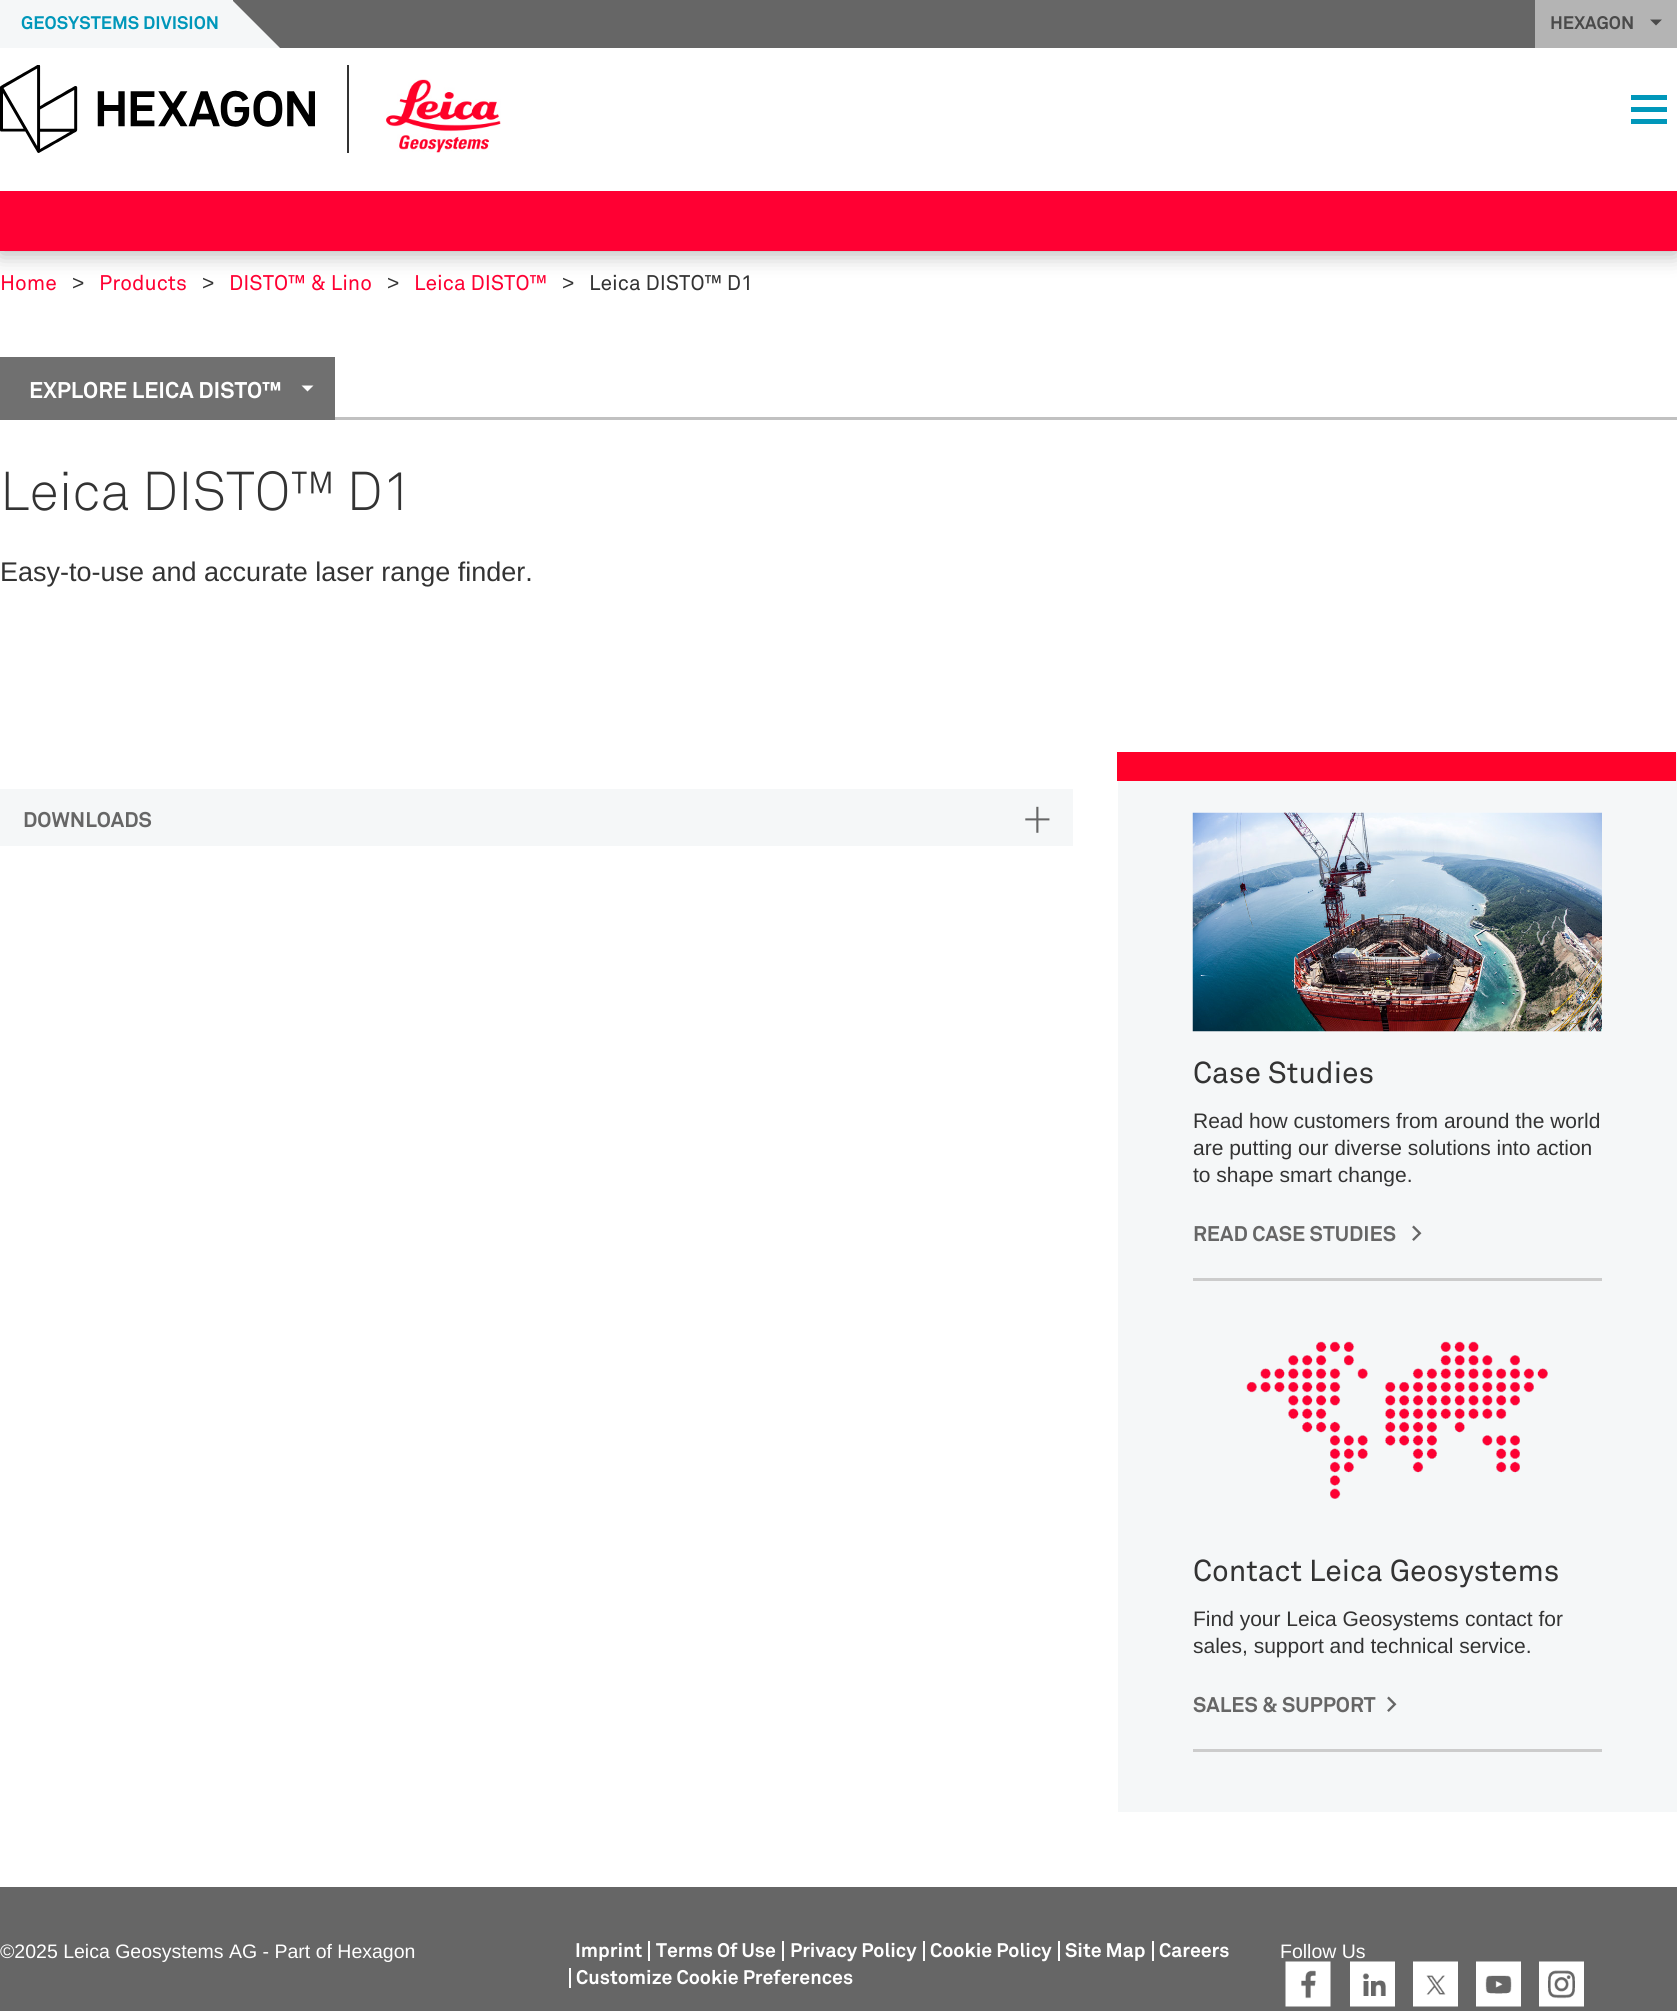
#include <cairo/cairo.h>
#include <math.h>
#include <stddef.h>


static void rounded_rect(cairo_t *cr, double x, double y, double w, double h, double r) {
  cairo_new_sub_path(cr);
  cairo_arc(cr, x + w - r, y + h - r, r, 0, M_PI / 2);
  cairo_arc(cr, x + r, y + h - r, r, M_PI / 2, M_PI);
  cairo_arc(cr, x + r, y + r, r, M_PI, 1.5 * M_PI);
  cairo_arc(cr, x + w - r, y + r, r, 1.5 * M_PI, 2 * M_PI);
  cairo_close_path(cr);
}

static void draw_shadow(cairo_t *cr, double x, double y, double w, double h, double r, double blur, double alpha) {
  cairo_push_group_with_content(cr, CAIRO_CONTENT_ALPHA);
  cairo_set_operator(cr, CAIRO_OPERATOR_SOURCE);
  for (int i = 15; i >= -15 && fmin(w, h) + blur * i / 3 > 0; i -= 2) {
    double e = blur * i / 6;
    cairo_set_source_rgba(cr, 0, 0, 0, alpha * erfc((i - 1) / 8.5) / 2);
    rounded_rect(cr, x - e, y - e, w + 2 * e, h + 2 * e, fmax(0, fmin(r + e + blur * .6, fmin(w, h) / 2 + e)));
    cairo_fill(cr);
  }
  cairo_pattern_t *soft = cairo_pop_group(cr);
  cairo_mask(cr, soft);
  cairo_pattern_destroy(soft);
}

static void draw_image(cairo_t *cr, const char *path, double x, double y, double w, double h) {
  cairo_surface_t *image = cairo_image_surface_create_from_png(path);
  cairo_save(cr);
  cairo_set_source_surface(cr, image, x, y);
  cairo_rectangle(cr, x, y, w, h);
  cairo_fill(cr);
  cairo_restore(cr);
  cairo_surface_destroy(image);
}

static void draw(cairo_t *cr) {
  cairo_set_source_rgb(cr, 1, 1, 1);
  cairo_paint(cr);
  cairo_set_source_rgb(cr, 0, 0, 0);
  draw_shadow(cr, 0, 3, 1677, 251, 0, 11, 0.3);
  cairo_set_source_rgb(cr, 1, 1, 1);
  cairo_rectangle(cr, 0, 48, 1677, 143);
  cairo_fill(cr);
  cairo_set_source_rgb(cr, 102 / 255.0, 102 / 255.0, 102 / 255.0);
  cairo_rectangle(cr, 233, 0, 1302, 48);
  cairo_fill(cr);
  cairo_set_source_rgb(cr, 245 / 255.0, 247 / 255.0, 248 / 255.0);
  cairo_rectangle(cr, 0, 0, 233, 48);
  cairo_fill(cr);
  cairo_new_path(cr);
  cairo_move_to(cr, 280, 48);
  cairo_line_to(cr, 232, 48);
  cairo_line_to(cr, 232, 0);
  cairo_close_path(cr);
  cairo_fill(cr);
  cairo_set_source_rgb(cr, 180 / 255.0, 180 / 255.0, 180 / 255.0);
  cairo_rectangle(cr, 1535, 0, 142, 48);
  cairo_fill(cr);
  cairo_set_source_rgb(cr, 74 / 255.0, 74 / 255.0, 74 / 255.0);
  cairo_new_path(cr);
  cairo_move_to(cr, 1650, 19.5);
  cairo_line_to(cr, 1662, 19.5);
  cairo_line_to(cr, 1656, 25.5);
  cairo_close_path(cr);
  cairo_fill(cr);
  cairo_set_source_rgb(cr, 51 / 255.0, 51 / 255.0, 51 / 255.0);
  cairo_rectangle(cr, 347, 65, 2, 88);
  cairo_fill(cr);
  draw_image(cr, "images/1.png", 0, 65, 315, 88);
  draw_image(cr, "images/2.png", 386, 79, 115, 74);
  cairo_set_source_rgb(cr, 0, 151 / 255.0, 186 / 255.0);
  cairo_rectangle(cr, 1631, 95, 36, 5);
  cairo_fill(cr);
  cairo_rectangle(cr, 1631, 107, 36, 5);
  cairo_fill(cr);
  cairo_rectangle(cr, 1631, 119, 36, 5);
  cairo_fill(cr);
  cairo_set_source_rgb(cr, 1, 0, 51 / 255.0);
  cairo_rectangle(cr, 0, 191, 1677, 60);
  cairo_fill(cr);
  cairo_set_source_rgb(cr, 112 / 255.0, 112 / 255.0, 112 / 255.0);
  cairo_rectangle(cr, 0, 357, 335, 63);
  cairo_fill(cr);
  cairo_set_source_rgb(cr, 1, 1, 1);
  cairo_new_path(cr);
  cairo_move_to(cr, 301.5, 385.5);
  cairo_line_to(cr, 313.5, 385.5);
  cairo_line_to(cr, 307.5, 391.5);
  cairo_close_path(cr);
  cairo_fill(cr);
  cairo_set_source_rgb(cr, 193 / 255.0, 193 / 255.0, 193 / 255.0);
  cairo_rectangle(cr, 335, 417, 1342, 3);
  cairo_fill(cr);
  cairo_set_source_rgb(cr, 245 / 255.0, 247 / 255.0, 248 / 255.0);
  cairo_rectangle(cr, 0, 789, 1073, 57);
  cairo_fill(cr);
  cairo_rectangle(cr, 1118, 753, 559, 1059);
  cairo_fill(cr);
  cairo_set_source_rgb(cr, 1, 1 / 255.0, 41 / 255.0);
  cairo_rectangle(cr, 1117, 752, 559, 29);
  cairo_fill(cr);
  cairo_set_source_rgb(cr, 204 / 255.0, 204 / 255.0, 204 / 255.0);
  cairo_rectangle(cr, 1193, 1278, 409, 3);
  cairo_fill(cr);
  draw_image(cr, "images/3.png", 1192, 812, 410, 220);
  cairo_rectangle(cr, 1193, 1749, 409, 3);
  cairo_fill(cr);
  draw_image(cr, "images/4.png", 1246, 1341, 302, 158);
  cairo_set_source_rgb(cr, 102 / 255.0, 102 / 255.0, 102 / 255.0);
  cairo_rectangle(cr, 0, 1887, 1677, 124);
  cairo_fill(cr);
  cairo_set_source_rgb(cr, 1, 1, 1);
  cairo_rectangle(cr, 648, 1941, 2, 20);
  cairo_fill(cr);
  cairo_rectangle(cr, 782, 1941, 2, 20);
  cairo_fill(cr);
  cairo_rectangle(cr, 923, 1941, 2, 20);
  cairo_fill(cr);
  cairo_rectangle(cr, 1058, 1941, 2, 20);
  cairo_fill(cr);
  cairo_rectangle(cr, 1152, 1941, 2, 20);
  cairo_fill(cr);
  cairo_rectangle(cr, 569, 1968, 2, 20);
  cairo_fill(cr);
  draw_image(cr, "images/5.png", 1285, 1961, 46, 46);
  draw_image(cr, "images/6.png", 1350, 1961, 45, 46);
  draw_image(cr, "images/7.png", 1413, 1961, 45, 46);
  draw_image(cr, "images/8.png", 1476, 1961, 45, 46);
  draw_image(cr, "images/9.png", 1539, 1961, 45, 46);
  cairo_select_font_face(cr, "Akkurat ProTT", CAIRO_FONT_SLANT_NORMAL, CAIRO_FONT_WEIGHT_BOLD);
  cairo_set_font_size(cr, 18);
  cairo_set_source_rgb(cr, 0, 151 / 255.0, 186 / 255.0);
  cairo_move_to(cr, 21, 29);
  cairo_show_text(cr, "GEOSYSTEMS DIVISION");
  cairo_set_source_rgb(cr, 74 / 255.0, 74 / 255.0, 74 / 255.0);
  cairo_move_to(cr, 1550, 29);
  cairo_show_text(cr, "HEXAGON");
  cairo_select_font_face(cr, "Akkurat ProTT", CAIRO_FONT_SLANT_NORMAL, CAIRO_FONT_WEIGHT_NORMAL);
  cairo_set_font_size(cr, 21);
  cairo_set_source_rgb(cr, 1, 0, 51 / 255.0);
  cairo_move_to(cr, 0, 290);
  cairo_show_text(cr, "Home");
  cairo_select_font_face(cr, "Liberation Sans", CAIRO_FONT_SLANT_NORMAL, CAIRO_FONT_WEIGHT_NORMAL);
  cairo_set_source_rgb(cr, 51 / 255.0, 51 / 255.0, 51 / 255.0);
  cairo_move_to(cr, 72, 290);
  cairo_show_text(cr, ">");
  cairo_select_font_face(cr, "Akkurat ProTT", CAIRO_FONT_SLANT_NORMAL, CAIRO_FONT_WEIGHT_NORMAL);
  cairo_set_source_rgb(cr, 1, 0, 51 / 255.0);
  cairo_move_to(cr, 99, 290);
  cairo_show_text(cr, "Products");
  cairo_select_font_face(cr, "Liberation Sans", CAIRO_FONT_SLANT_NORMAL, CAIRO_FONT_WEIGHT_NORMAL);
  cairo_set_source_rgb(cr, 51 / 255.0, 51 / 255.0, 51 / 255.0);
  cairo_move_to(cr, 202, 290);
  cairo_show_text(cr, ">");
  cairo_select_font_face(cr, "Akkurat ProTT", CAIRO_FONT_SLANT_NORMAL, CAIRO_FONT_WEIGHT_NORMAL);
  cairo_set_source_rgb(cr, 1, 0, 51 / 255.0);
  cairo_move_to(cr, 229, 290);
  cairo_show_text(cr, "DISTO™ & Lino");
  cairo_select_font_face(cr, "Liberation Sans", CAIRO_FONT_SLANT_NORMAL, CAIRO_FONT_WEIGHT_NORMAL);
  cairo_set_source_rgb(cr, 51 / 255.0, 51 / 255.0, 51 / 255.0);
  cairo_move_to(cr, 387, 290);
  cairo_show_text(cr, ">");
  cairo_select_font_face(cr, "Akkurat ProTT", CAIRO_FONT_SLANT_NORMAL, CAIRO_FONT_WEIGHT_NORMAL);
  cairo_set_source_rgb(cr, 1, 0, 51 / 255.0);
  cairo_move_to(cr, 414, 290);
  cairo_show_text(cr, "Leica DISTO™");
  cairo_select_font_face(cr, "Liberation Sans", CAIRO_FONT_SLANT_NORMAL, CAIRO_FONT_WEIGHT_NORMAL);
  cairo_set_source_rgb(cr, 51 / 255.0, 51 / 255.0, 51 / 255.0);
  cairo_move_to(cr, 562, 290);
  cairo_show_text(cr, ">");
  cairo_select_font_face(cr, "Akkurat ProTT", CAIRO_FONT_SLANT_NORMAL, CAIRO_FONT_WEIGHT_NORMAL);
  cairo_move_to(cr, 589, 290);
  cairo_show_text(cr, "Leica DISTO™ D1");
  cairo_select_font_face(cr, "Akkurat ProTT", CAIRO_FONT_SLANT_NORMAL, CAIRO_FONT_WEIGHT_BOLD);
  cairo_set_font_size(cr, 22.5);
  cairo_set_source_rgb(cr, 1, 1, 1);
  cairo_move_to(cr, 29, 398);
  cairo_show_text(cr, "EXPLORE LEICA DISTO™");
  cairo_select_font_face(cr, "Akkurat ProTT Light", CAIRO_FONT_SLANT_NORMAL, CAIRO_FONT_WEIGHT_NORMAL);
  cairo_set_font_size(cr, 54);
  cairo_set_source_rgb(cr, 51 / 255.0, 51 / 255.0, 51 / 255.0);
  cairo_move_to(cr, 0, 510);
  cairo_show_text(cr, "Leica DISTO™ D1");
  cairo_select_font_face(cr, "Liberation Sans", CAIRO_FONT_SLANT_NORMAL, CAIRO_FONT_WEIGHT_NORMAL);
  cairo_set_font_size(cr, 27);
  cairo_move_to(cr, 0, 581);
  cairo_show_text(cr, "Easy-to-use and accurate laser range finder.");
  cairo_select_font_face(cr, "Akkurat ProTT", CAIRO_FONT_SLANT_NORMAL, CAIRO_FONT_WEIGHT_BOLD);
  cairo_set_font_size(cr, 21);
  cairo_set_source_rgb(cr, 102 / 255.0, 102 / 255.0, 102 / 255.0);
  cairo_move_to(cr, 23, 827);
  cairo_show_text(cr, "DOWNLOADS");
  cairo_select_font_face(cr, "Akkurat ProTT Light", CAIRO_FONT_SLANT_NORMAL, CAIRO_FONT_WEIGHT_NORMAL);
  cairo_set_font_size(cr, 45);
  cairo_move_to(cr, 1022, 833);
  cairo_show_text(cr, "+");
  cairo_select_font_face(cr, "Akkurat ProTT", CAIRO_FONT_SLANT_NORMAL, CAIRO_FONT_WEIGHT_NORMAL);
  cairo_set_font_size(cr, 30);
  cairo_set_source_rgb(cr, 51 / 255.0, 51 / 255.0, 51 / 255.0);
  cairo_move_to(cr, 1193, 1083);
  cairo_show_text(cr, "Case Studies");
  cairo_select_font_face(cr, "Liberation Sans", CAIRO_FONT_SLANT_NORMAL, CAIRO_FONT_WEIGHT_NORMAL);
  cairo_set_font_size(cr, 21);
  cairo_move_to(cr, 1193, 1128);
  cairo_show_text(cr, "Read how customers from around the world");
  cairo_move_to(cr, 1193, 1155);
  cairo_show_text(cr, "are putting our diverse solutions into action");
  cairo_move_to(cr, 1193, 1182);
  cairo_show_text(cr, "to shape smart change.");
  cairo_select_font_face(cr, "Akkurat ProTT", CAIRO_FONT_SLANT_NORMAL, CAIRO_FONT_WEIGHT_BOLD);
  cairo_set_source_rgb(cr, 102 / 255.0, 102 / 255.0, 102 / 255.0);
  cairo_move_to(cr, 1193, 1241);
  cairo_show_text(cr, "READ CASE STUDIES");
  cairo_set_font_size(cr, 24);
  cairo_move_to(cr, 1411, 1241);
  cairo_show_text(cr, ">");
  cairo_select_font_face(cr, "Akkurat ProTT", CAIRO_FONT_SLANT_NORMAL, CAIRO_FONT_WEIGHT_NORMAL);
  cairo_set_font_size(cr, 30);
  cairo_set_source_rgb(cr, 51 / 255.0, 51 / 255.0, 51 / 255.0);
  cairo_move_to(cr, 1193, 1581);
  cairo_show_text(cr, "Contact Leica Geosystems");
  cairo_select_font_face(cr, "Liberation Sans", CAIRO_FONT_SLANT_NORMAL, CAIRO_FONT_WEIGHT_NORMAL);
  cairo_set_font_size(cr, 21);
  cairo_move_to(cr, 1193, 1626);
  cairo_show_text(cr, "Find your Leica Geosystems contact for");
  cairo_move_to(cr, 1193, 1653);
  cairo_show_text(cr, "sales, support and technical service.");
  cairo_select_font_face(cr, "Akkurat ProTT", CAIRO_FONT_SLANT_NORMAL, CAIRO_FONT_WEIGHT_BOLD);
  cairo_set_source_rgb(cr, 102 / 255.0, 102 / 255.0, 102 / 255.0);
  cairo_move_to(cr, 1193, 1712);
  cairo_show_text(cr, "SALES & SUPPORT");
  cairo_set_font_size(cr, 24);
  cairo_move_to(cr, 1386, 1712);
  cairo_show_text(cr, ">");
  cairo_select_font_face(cr, "Liberation Sans", CAIRO_FONT_SLANT_NORMAL, CAIRO_FONT_WEIGHT_NORMAL);
  cairo_set_font_size(cr, 19.5);
  cairo_set_source_rgb(cr, 1, 1, 1);
  cairo_move_to(cr, 0, 1958);
  cairo_show_text(cr, "©2025 Leica Geosystems AG - Part of Hexagon");
  cairo_select_font_face(cr, "Akkurat ProTT", CAIRO_FONT_SLANT_NORMAL, CAIRO_FONT_WEIGHT_BOLD);
  cairo_move_to(cr, 575, 1957);
  cairo_show_text(cr, "Imprint");
  cairo_move_to(cr, 656, 1957);
  cairo_show_text(cr, "Terms Of Use");
  cairo_move_to(cr, 790, 1957);
  cairo_show_text(cr, "Privacy Policy");
  cairo_move_to(cr, 930, 1957);
  cairo_show_text(cr, "Cookie Policy");
  cairo_move_to(cr, 1065, 1957);
  cairo_show_text(cr, "Site Map");
  cairo_move_to(cr, 1159, 1957);
  cairo_show_text(cr, "Careers");
  cairo_move_to(cr, 576, 1984);
  cairo_show_text(cr, "Customize Cookie Preferences");
  cairo_select_font_face(cr, "Liberation Sans", CAIRO_FONT_SLANT_NORMAL, CAIRO_FONT_WEIGHT_NORMAL);
  cairo_move_to(cr, 1280, 1958);
  cairo_show_text(cr, "Follow Us");
}

int main(void) {
  cairo_surface_t *surface = cairo_image_surface_create(CAIRO_FORMAT_RGB24, 1677, 2011);
  cairo_t *cr = cairo_create(surface);
  cairo_font_options_t *options = cairo_font_options_create();
  cairo_font_options_set_hint_metrics(options, CAIRO_HINT_METRICS_OFF);
  cairo_font_options_set_hint_style(options, CAIRO_HINT_STYLE_NONE);
  cairo_set_font_options(cr, options);
  cairo_set_miter_limit(cr, 4);
  draw(cr);
  cairo_surface_write_to_png(surface, "out.png");
  cairo_font_options_destroy(options);
  cairo_destroy(cr);
  cairo_surface_destroy(surface);
  return 0;
}
